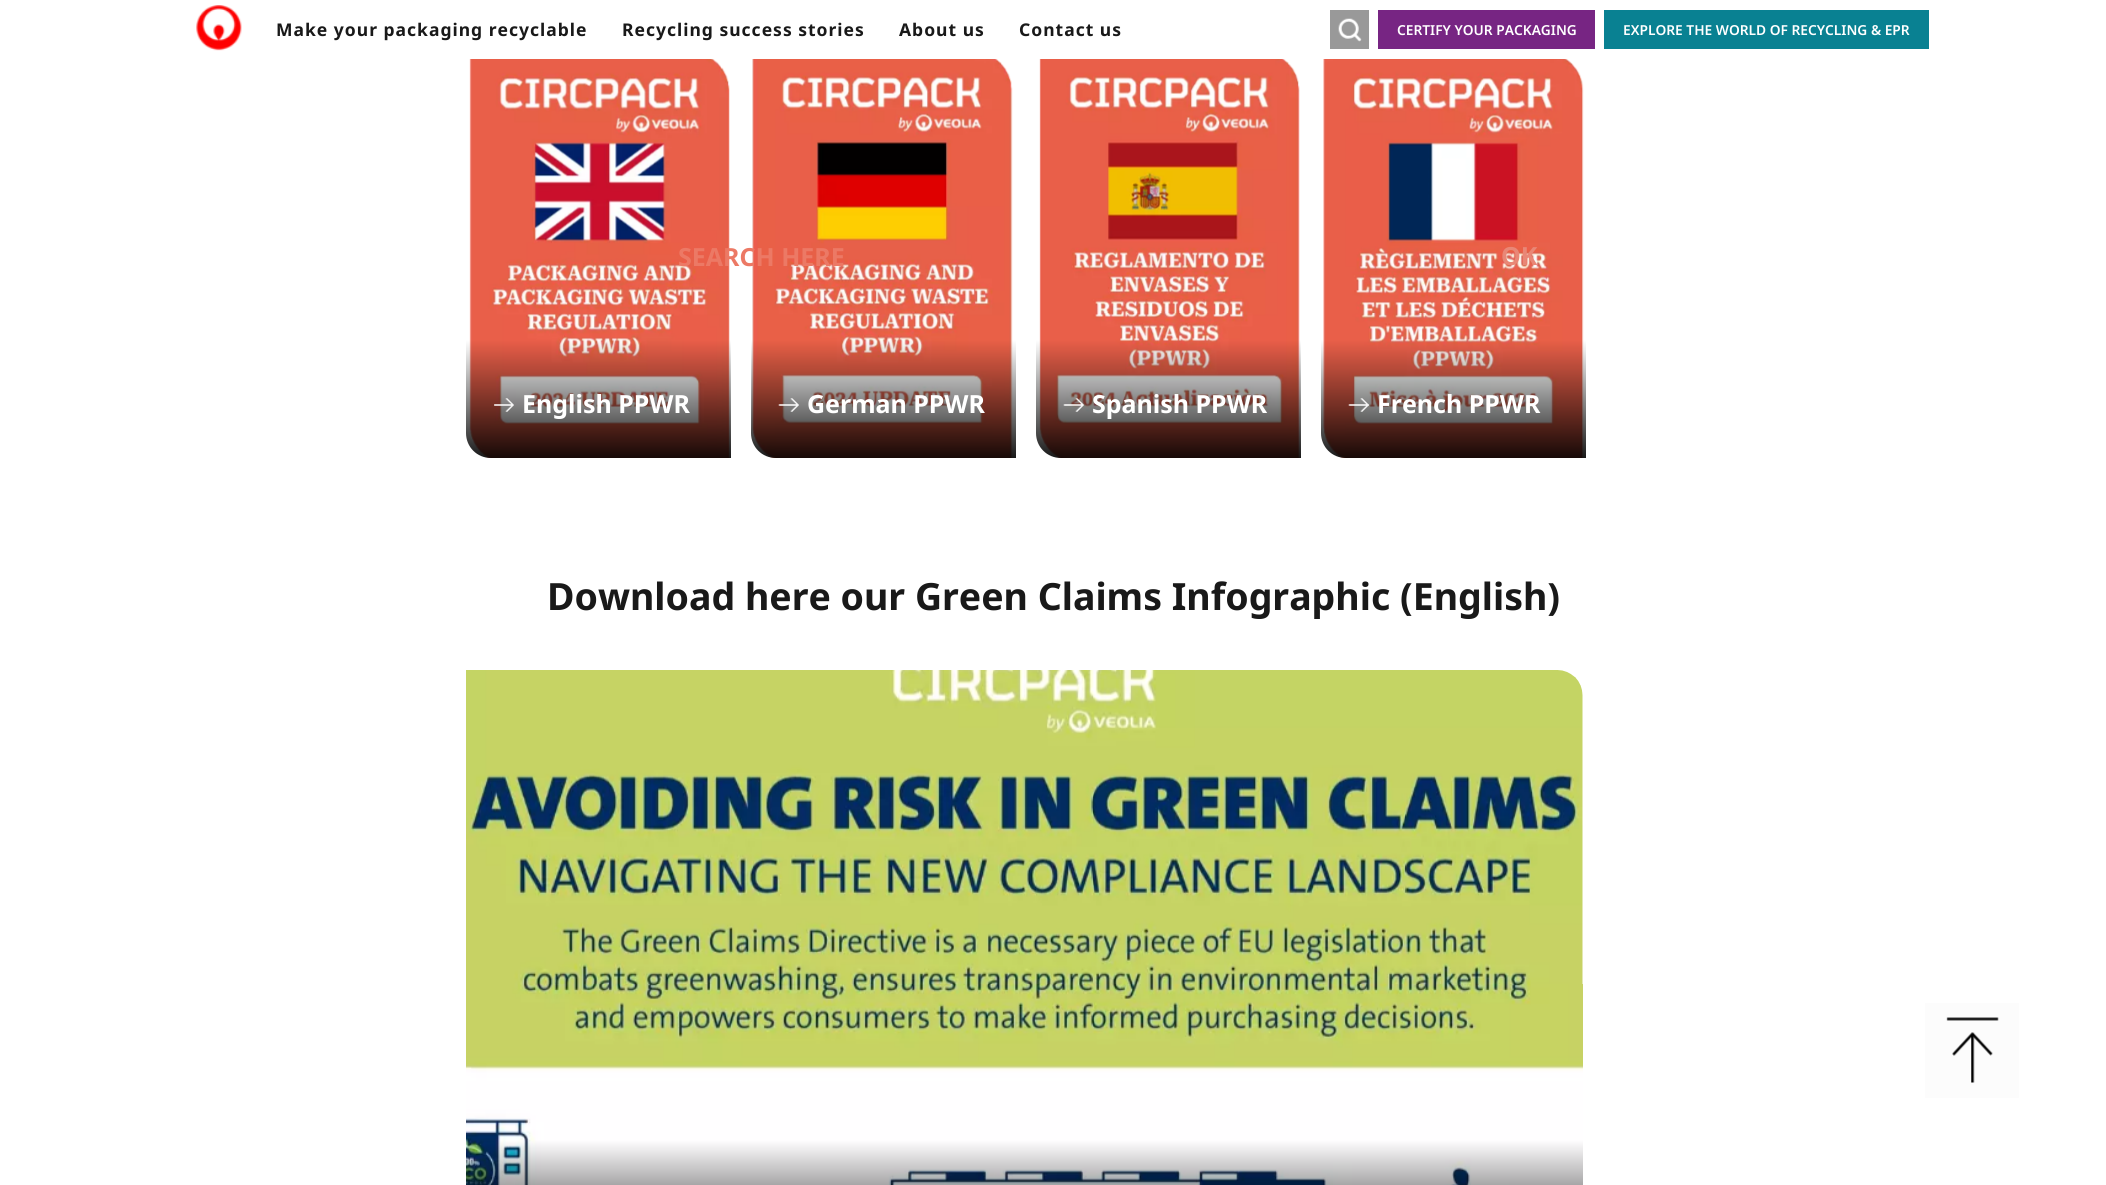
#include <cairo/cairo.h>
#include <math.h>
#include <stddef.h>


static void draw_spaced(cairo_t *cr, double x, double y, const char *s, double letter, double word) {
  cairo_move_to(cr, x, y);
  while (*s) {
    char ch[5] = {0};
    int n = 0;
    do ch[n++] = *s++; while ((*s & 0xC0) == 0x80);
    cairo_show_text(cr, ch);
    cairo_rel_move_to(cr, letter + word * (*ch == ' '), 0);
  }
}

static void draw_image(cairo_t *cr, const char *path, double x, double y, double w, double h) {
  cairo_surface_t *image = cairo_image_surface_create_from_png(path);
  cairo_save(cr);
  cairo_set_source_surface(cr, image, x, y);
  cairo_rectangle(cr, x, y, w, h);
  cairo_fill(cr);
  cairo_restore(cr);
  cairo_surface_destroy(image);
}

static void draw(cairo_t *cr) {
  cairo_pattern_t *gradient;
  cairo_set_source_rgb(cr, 1, 1, 1);
  cairo_paint(cr);
  draw_image(cr, "images/1.png", 196, 5, 46, 46);
  cairo_set_source_rgb(cr, 119 / 255.0, 37 / 255.0, 131 / 255.0);
  cairo_rectangle(cr, 1378, 10, 217, 39);
  cairo_fill(cr);
  cairo_set_source_rgb(cr, 9 / 255.0, 129 / 255.0, 146 / 255.0);
  cairo_rectangle(cr, 1604, 10, 325, 39);
  cairo_fill(cr);
  cairo_set_source_rgb(cr, 153 / 255.0, 153 / 255.0, 153 / 255.0);
  cairo_rectangle(cr, 1330, 10, 39, 39);
  cairo_fill(cr);
  draw_image(cr, "images/2.png", 1338, 18, 24, 24);
  draw_image(cr, "images/3.png", 469, 59, 261, 399);
  gradient = cairo_pattern_create_linear(599, 340, 599, 458);
  cairo_pattern_add_color_stop_rgba(gradient, 0, 0, 0, 0, 0);
  cairo_pattern_add_color_stop_rgba(gradient, 1, 0, 0, 0, 0.9);
  cairo_set_source(cr, gradient);
  cairo_pattern_destroy(gradient);
  cairo_new_path(cr);
  cairo_move_to(cr, 466, 340);
  cairo_line_to(cr, 731, 340);
  cairo_line_to(cr, 731, 458);
  cairo_line_to(cr, 491, 458);
  cairo_curve_to(cr, 477, 458, 466, 447, 466, 433);
  cairo_close_path(cr);
  cairo_fill(cr);
  draw_image(cr, "images/4.png", 494, 398, 20, 14);
  draw_image(cr, "images/5.png", 752, 59, 261, 399);
  gradient = cairo_pattern_create_linear(884, 340, 884, 458);
  cairo_pattern_add_color_stop_rgba(gradient, 0, 0, 0, 0, 0);
  cairo_pattern_add_color_stop_rgba(gradient, 1, 0, 0, 0, 0.9);
  cairo_set_source(cr, gradient);
  cairo_pattern_destroy(gradient);
  cairo_new_path(cr);
  cairo_move_to(cr, 751, 340);
  cairo_line_to(cr, 1016, 340);
  cairo_line_to(cr, 1016, 458);
  cairo_line_to(cr, 776, 458);
  cairo_curve_to(cr, 762, 458, 751, 447, 751, 433);
  cairo_close_path(cr);
  cairo_fill(cr);
  draw_image(cr, "images/6.png", 778, 398, 21, 14);
  draw_image(cr, "images/7.png", 1039, 59, 261, 399);
  gradient = cairo_pattern_create_linear(1169, 340, 1169, 458);
  cairo_pattern_add_color_stop_rgba(gradient, 0, 0, 0, 0, 0);
  cairo_pattern_add_color_stop_rgba(gradient, 1, 0, 0, 0, 0.9);
  cairo_set_source(cr, gradient);
  cairo_pattern_destroy(gradient);
  cairo_new_path(cr);
  cairo_move_to(cr, 1036, 340);
  cairo_line_to(cr, 1301, 340);
  cairo_line_to(cr, 1301, 458);
  cairo_line_to(cr, 1061, 458);
  cairo_curve_to(cr, 1047, 458, 1036, 447, 1036, 433);
  cairo_close_path(cr);
  cairo_fill(cr);
  draw_image(cr, "images/8.png", 1063, 398, 21, 14);
  draw_image(cr, "images/9.png", 1323, 59, 261, 399);
  gradient = cairo_pattern_create_linear(1454, 340, 1454, 458);
  cairo_pattern_add_color_stop_rgba(gradient, 0, 0, 0, 0, 0);
  cairo_pattern_add_color_stop_rgba(gradient, 1, 0, 0, 0, 0.9);
  cairo_set_source(cr, gradient);
  cairo_pattern_destroy(gradient);
  cairo_new_path(cr);
  cairo_move_to(cr, 1321, 340);
  cairo_line_to(cr, 1586, 340);
  cairo_line_to(cr, 1586, 458);
  cairo_line_to(cr, 1346, 458);
  cairo_curve_to(cr, 1332, 458, 1321, 447, 1321, 433);
  cairo_close_path(cr);
  cairo_fill(cr);
  draw_image(cr, "images/10.png", 1348, 398, 21, 14);
  draw_image(cr, "images/11.png", 466, 670, 1117, 515);
  cairo_set_source_rgb(cr, 252 / 255.0, 252 / 255.0, 252 / 255.0);
  cairo_rectangle(cr, 1925, 1003, 94, 95);
  cairo_fill(cr);
  draw_image(cr, "images/12.png", 1946, 1017, 53, 66);
  cairo_select_font_face(cr, "Noto Sans", CAIRO_FONT_SLANT_NORMAL, CAIRO_FONT_WEIGHT_BOLD);
  cairo_set_font_size(cr, 17.5);
  cairo_set_source_rgb(cr, 25 / 255.0, 25 / 255.0, 25 / 255.0);
  draw_spaced(cr, 276, 36, "Make your packaging recyclable", 1, 0);
  draw_spaced(cr, 622, 36, "Recycling success stories", 1, 0);
  draw_spaced(cr, 899, 36, "About us", 1, 0);
  draw_spaced(cr, 1019, 36, "Contact us", 1, 0);
  cairo_select_font_face(cr, "Noto Sans SemiBold", CAIRO_FONT_SLANT_NORMAL, CAIRO_FONT_WEIGHT_NORMAL);
  cairo_set_font_size(cr, 13.75);
  cairo_set_source_rgb(cr, 1, 1, 1);
  cairo_move_to(cr, 1397, 35);
  cairo_show_text(cr, "CERTIFY YOUR PACKAGING");
  cairo_move_to(cr, 1623, 35);
  cairo_show_text(cr, "EXPLORE THE WORLD OF RECYCLING & EPR");
  cairo_select_font_face(cr, "Noto Sans", CAIRO_FONT_SLANT_NORMAL, CAIRO_FONT_WEIGHT_BOLD);
  cairo_set_font_size(cr, 25);
  cairo_set_source_rgb(cr, 236 / 255.0, 121 / 255.0, 101 / 255.0);
  cairo_move_to(cr, 678, 266);
  cairo_show_text(cr, "SEARCH HERE");
  cairo_set_source_rgb(cr, 233 / 255.0, 135 / 255.0, 118 / 255.0);
  cairo_move_to(cr, 1501, 265);
  cairo_show_text(cr, "OK");
  cairo_set_source_rgb(cr, 1, 1, 1);
  cairo_move_to(cr, 522, 413);
  cairo_show_text(cr, "English PPWR");
  cairo_move_to(cr, 807, 413);
  cairo_show_text(cr, "German PPWR");
  cairo_move_to(cr, 1092, 413);
  cairo_show_text(cr, "Spanish PPWR");
  cairo_move_to(cr, 1377, 413);
  cairo_show_text(cr, "French PPWR");
  cairo_set_font_size(cr, 37.5);
  cairo_set_source_rgb(cr, 25 / 255.0, 25 / 255.0, 25 / 255.0);
  cairo_move_to(cr, 547, 610);
  cairo_show_text(cr, "Download here our Green Claims Infographic (English)");
}

int main(void) {
  cairo_surface_t *surface = cairo_image_surface_create(CAIRO_FORMAT_RGB24, 2106, 1185);
  cairo_t *cr = cairo_create(surface);
  cairo_font_options_t *options = cairo_font_options_create();
  cairo_font_options_set_hint_metrics(options, CAIRO_HINT_METRICS_OFF);
  cairo_font_options_set_hint_style(options, CAIRO_HINT_STYLE_NONE);
  cairo_set_font_options(cr, options);
  cairo_set_miter_limit(cr, 4);
  draw(cr);
  cairo_surface_write_to_png(surface, "out.png");
  cairo_font_options_destroy(options);
  cairo_destroy(cr);
  cairo_surface_destroy(surface);
  return 0;
}
